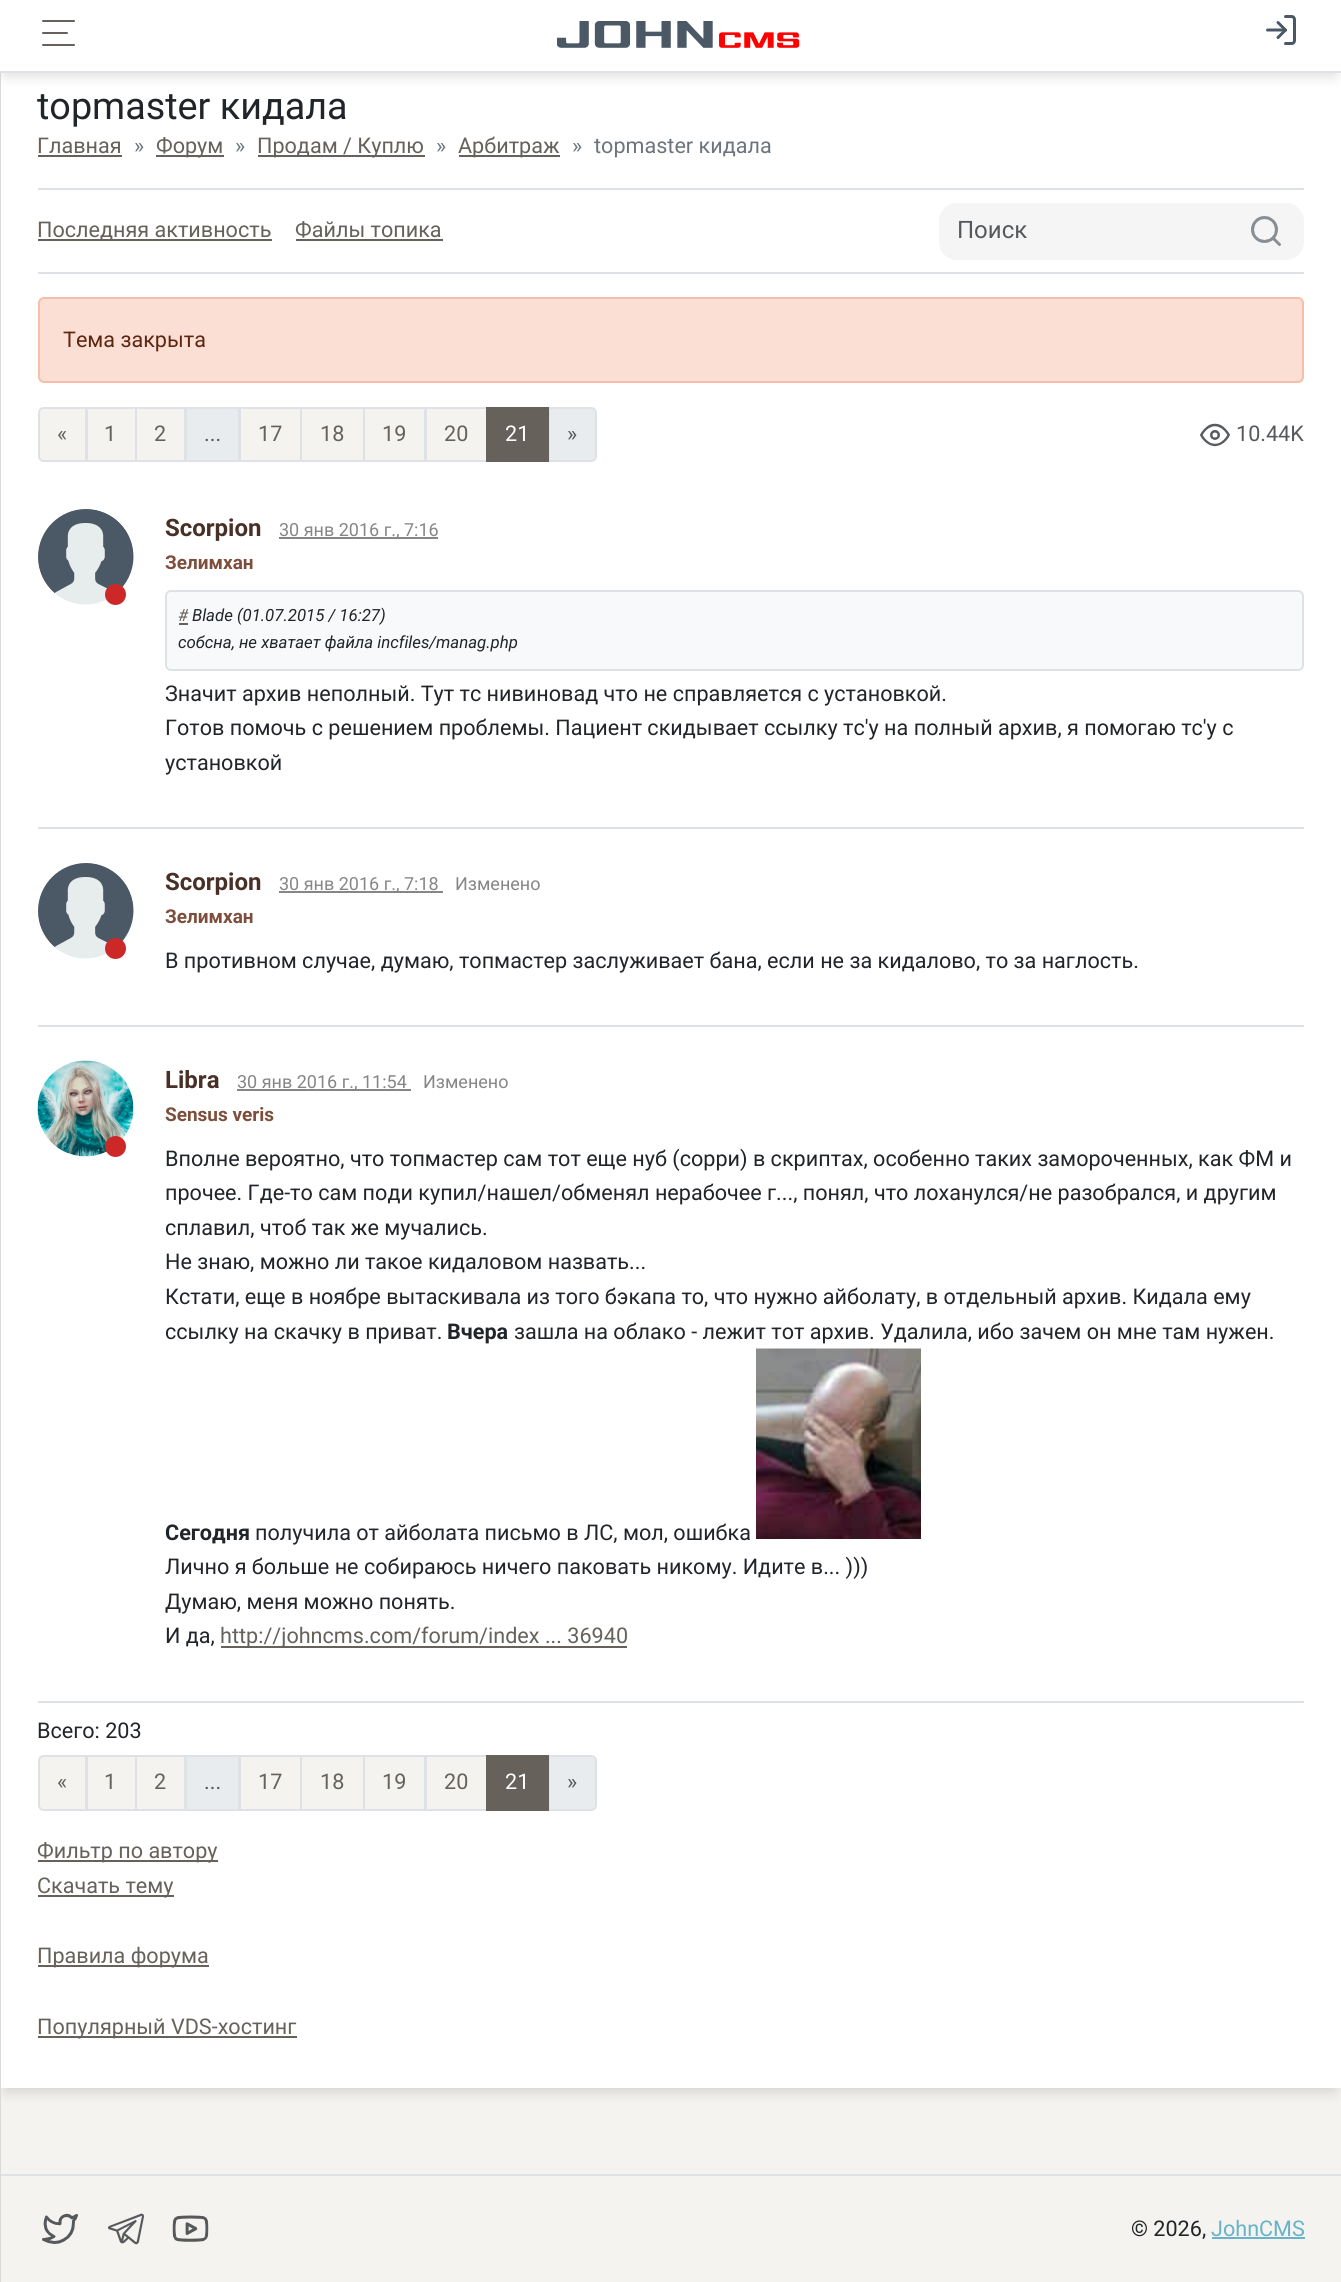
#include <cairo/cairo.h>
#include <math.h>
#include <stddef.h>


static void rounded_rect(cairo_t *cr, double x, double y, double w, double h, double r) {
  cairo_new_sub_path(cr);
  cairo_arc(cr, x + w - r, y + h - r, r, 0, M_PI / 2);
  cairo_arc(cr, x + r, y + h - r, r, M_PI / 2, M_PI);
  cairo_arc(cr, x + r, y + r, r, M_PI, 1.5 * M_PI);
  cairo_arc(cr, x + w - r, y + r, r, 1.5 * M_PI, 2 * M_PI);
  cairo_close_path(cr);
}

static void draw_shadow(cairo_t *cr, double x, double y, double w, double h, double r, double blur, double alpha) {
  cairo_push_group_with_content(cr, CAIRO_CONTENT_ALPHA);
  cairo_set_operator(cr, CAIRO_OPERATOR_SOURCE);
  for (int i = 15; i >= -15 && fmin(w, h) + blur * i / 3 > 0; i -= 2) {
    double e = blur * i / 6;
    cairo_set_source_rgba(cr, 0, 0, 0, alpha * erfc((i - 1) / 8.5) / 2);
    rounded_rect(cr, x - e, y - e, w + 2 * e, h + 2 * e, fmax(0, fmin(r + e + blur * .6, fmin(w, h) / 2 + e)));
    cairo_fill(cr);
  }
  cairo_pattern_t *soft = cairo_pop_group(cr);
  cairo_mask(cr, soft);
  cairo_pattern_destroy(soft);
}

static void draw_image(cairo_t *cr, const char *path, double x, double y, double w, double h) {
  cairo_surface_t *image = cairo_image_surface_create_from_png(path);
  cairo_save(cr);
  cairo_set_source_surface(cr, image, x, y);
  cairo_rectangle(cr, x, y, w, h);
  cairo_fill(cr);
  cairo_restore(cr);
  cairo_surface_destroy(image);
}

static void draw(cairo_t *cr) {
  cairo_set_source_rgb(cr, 244 / 255.0, 243 / 255.0, 239 / 255.0);
  cairo_paint(cr);
  cairo_set_source_rgb(cr, 0, 0, 0);
  draw_shadow(cr, 6, 15, 1329, 2076, 0, 7.5, 0.15);
  cairo_set_source_rgb(cr, 222 / 255.0, 226 / 255.0, 230 / 255.0);
  cairo_rectangle(cr, 0, 2174, 1341, 2);
  cairo_fill(cr);
  cairo_set_source_rgb(cr, 218 / 255.0, 218 / 255.0, 218 / 255.0);
  cairo_rectangle(cr, 0, 73, 1, 2209);
  cairo_fill(cr);
  cairo_set_source_rgb(cr, 1, 1, 1);
  cairo_rectangle(cr, 1, 73, 1340, 2015);
  cairo_fill(cr);
  cairo_set_source_rgb(cr, 0, 0, 0);
  draw_shadow(cr, 6, 15, 1329, 60, 0, 7.5, 0.15);
  cairo_set_source_rgb(cr, 1, 1, 1);
  cairo_rectangle(cr, 0, 0, 1341, 71);
  cairo_fill(cr);
  cairo_set_source_rgb(cr, 222 / 255.0, 226 / 255.0, 230 / 255.0);
  cairo_rectangle(cr, 0, 71, 1341, 2);
  cairo_fill(cr);
  cairo_set_source_rgb(cr, 102 / 255.0, 97 / 255.0, 91 / 255.0);
  rounded_rect(cr, 42, 20, 33, 2, 1);
  cairo_fill(cr);
  rounded_rect(cr, 42, 32, 26, 2, 1);
  cairo_fill(cr);
  rounded_rect(cr, 42, 44, 33, 2, 1);
  cairo_fill(cr);
  draw_image(cr, "images/1.png", 557, 21, 243, 27);
  draw_image(cr, "images/2.png", 1266, 15, 30, 30);
  cairo_rectangle(cr, 38, 155, 84, 2);
  cairo_fill(cr);
  cairo_rectangle(cr, 156, 155, 68, 2);
  cairo_fill(cr);
  cairo_rectangle(cr, 258, 155, 167, 2);
  cairo_fill(cr);
  cairo_rectangle(cr, 459, 155, 101, 2);
  cairo_fill(cr);
  cairo_set_source_rgb(cr, 222 / 255.0, 226 / 255.0, 230 / 255.0);
  cairo_rectangle(cr, 38, 188, 1266, 2);
  cairo_fill(cr);
  cairo_rectangle(cr, 38, 272, 1266, 2);
  cairo_fill(cr);
  cairo_set_source_rgb(cr, 102 / 255.0, 97 / 255.0, 91 / 255.0);
  cairo_rectangle(cr, 38, 239, 234, 2);
  cairo_fill(cr);
  cairo_rectangle(cr, 296, 239, 147, 2);
  cairo_fill(cr);
  cairo_set_source_rgb(cr, 245 / 255.0, 245 / 255.0, 245 / 255.0);
  rounded_rect(cr, 939, 203, 365, 57, 18);
  cairo_fill(cr);
  draw_image(cr, "images/3.png", 1251, 216, 30, 30);
  cairo_set_source_rgb(cr, 251 / 255.0, 223 / 255.0, 212 / 255.0);
  rounded_rect(cr, 39, 298, 1264, 84, 5);
  cairo_fill_preserve(cr);
  cairo_set_source_rgb(cr, 247 / 255.0, 191 / 255.0, 169 / 255.0);
  cairo_stroke(cr);
  cairo_set_source_rgb(cr, 244 / 255.0, 243 / 255.0, 239 / 255.0);
  cairo_new_path(cr);
  cairo_move_to(cr, 44, 408);
  cairo_line_to(cr, 86, 408);
  cairo_line_to(cr, 86, 461);
  cairo_line_to(cr, 44, 461);
  cairo_curve_to(cr, 41, 461, 39, 459, 39, 456);
  cairo_line_to(cr, 39, 413);
  cairo_curve_to(cr, 39, 410, 41, 408, 44, 408);
  cairo_close_path(cr);
  cairo_fill_preserve(cr);
  cairo_set_source_rgb(cr, 222 / 255.0, 226 / 255.0, 230 / 255.0);
  cairo_stroke(cr);
  cairo_set_source_rgb(cr, 244 / 255.0, 243 / 255.0, 239 / 255.0);
  cairo_rectangle(cr, 87, 408, 49, 53);
  cairo_fill_preserve(cr);
  cairo_set_source_rgb(cr, 222 / 255.0, 226 / 255.0, 230 / 255.0);
  cairo_stroke(cr);
  cairo_set_source_rgb(cr, 244 / 255.0, 243 / 255.0, 239 / 255.0);
  cairo_rectangle(cr, 136, 408, 49, 53);
  cairo_fill_preserve(cr);
  cairo_set_source_rgb(cr, 222 / 255.0, 226 / 255.0, 230 / 255.0);
  cairo_stroke(cr);
  cairo_set_source_rgb(cr, 233 / 255.0, 236 / 255.0, 239 / 255.0);
  cairo_rectangle(cr, 186, 408, 53, 53);
  cairo_fill_preserve(cr);
  cairo_set_source_rgb(cr, 222 / 255.0, 226 / 255.0, 230 / 255.0);
  cairo_stroke(cr);
  cairo_set_source_rgb(cr, 244 / 255.0, 243 / 255.0, 239 / 255.0);
  cairo_rectangle(cr, 240, 408, 61, 53);
  cairo_fill_preserve(cr);
  cairo_set_source_rgb(cr, 222 / 255.0, 226 / 255.0, 230 / 255.0);
  cairo_stroke(cr);
  cairo_set_source_rgb(cr, 244 / 255.0, 243 / 255.0, 239 / 255.0);
  cairo_rectangle(cr, 301, 408, 63, 53);
  cairo_fill_preserve(cr);
  cairo_set_source_rgb(cr, 222 / 255.0, 226 / 255.0, 230 / 255.0);
  cairo_stroke(cr);
  cairo_set_source_rgb(cr, 244 / 255.0, 243 / 255.0, 239 / 255.0);
  cairo_rectangle(cr, 364, 408, 61, 53);
  cairo_fill_preserve(cr);
  cairo_set_source_rgb(cr, 222 / 255.0, 226 / 255.0, 230 / 255.0);
  cairo_stroke(cr);
  cairo_set_source_rgb(cr, 244 / 255.0, 243 / 255.0, 239 / 255.0);
  cairo_rectangle(cr, 426, 408, 61, 53);
  cairo_fill_preserve(cr);
  cairo_set_source_rgb(cr, 222 / 255.0, 226 / 255.0, 230 / 255.0);
  cairo_stroke(cr);
  cairo_set_source_rgb(cr, 233 / 255.0, 236 / 255.0, 239 / 255.0);
  cairo_new_path(cr);
  cairo_move_to(cr, 549, 408);
  cairo_line_to(cr, 591, 408);
  cairo_curve_to(cr, 594, 408, 596, 410, 596, 413);
  cairo_line_to(cr, 596, 456);
  cairo_curve_to(cr, 596, 459, 594, 461, 591, 461);
  cairo_line_to(cr, 549, 461);
  cairo_close_path(cr);
  cairo_fill_preserve(cr);
  cairo_set_source_rgb(cr, 222 / 255.0, 226 / 255.0, 230 / 255.0);
  cairo_stroke(cr);
  cairo_set_source_rgb(cr, 102 / 255.0, 97 / 255.0, 91 / 255.0);
  cairo_rectangle(cr, 486, 407, 63, 55);
  cairo_fill(cr);
  draw_image(cr, "images/4.png", 1200, 423, 30, 24);
  cairo_set_source_rgb(cr, 222 / 255.0, 226 / 255.0, 230 / 255.0);
  cairo_rectangle(cr, 38, 827, 1266, 2);
  cairo_fill(cr);
  draw_image(cr, "images/5.png", 38, 509, 96, 96);
  cairo_set_source_rgb(cr, 205 / 255.0, 40 / 255.0, 40 / 255.0);
  cairo_arc(cr, 115.5, 594.5, 10.5, 0, 2 * M_PI);
  cairo_fill(cr);
  cairo_set_source_rgb(cr, 134 / 255.0, 134 / 255.0, 134 / 255.0);
  cairo_rectangle(cr, 279, 537, 159, 2);
  cairo_fill(cr);
  cairo_set_source_rgb(cr, 248 / 255.0, 249 / 255.0, 250 / 255.0);
  rounded_rect(cr, 166, 591, 1137, 79, 5);
  cairo_fill_preserve(cr);
  cairo_set_source_rgb(cr, 222 / 255.0, 226 / 255.0, 230 / 255.0);
  cairo_stroke(cr);
  cairo_set_source_rgb(cr, 102 / 255.0, 97 / 255.0, 91 / 255.0);
  cairo_rectangle(cr, 179, 623, 9, 2);
  cairo_fill(cr);
  cairo_set_source_rgb(cr, 222 / 255.0, 226 / 255.0, 230 / 255.0);
  cairo_rectangle(cr, 38, 1025, 1266, 2);
  cairo_fill(cr);
  draw_image(cr, "images/5.png", 38, 863, 96, 96);
  cairo_set_source_rgb(cr, 205 / 255.0, 40 / 255.0, 40 / 255.0);
  cairo_arc(cr, 115.5, 948.5, 10.5, 0, 2 * M_PI);
  cairo_fill(cr);
  cairo_set_source_rgb(cr, 134 / 255.0, 134 / 255.0, 134 / 255.0);
  cairo_rectangle(cr, 279, 891, 164, 2);
  cairo_fill(cr);
  cairo_set_source_rgb(cr, 222 / 255.0, 226 / 255.0, 230 / 255.0);
  cairo_rectangle(cr, 38, 1701, 1266, 2);
  cairo_fill(cr);
  draw_image(cr, "images/6.png", 37, 1060, 97, 97);
  cairo_set_source_rgb(cr, 205 / 255.0, 40 / 255.0, 40 / 255.0);
  cairo_arc(cr, 115.5, 1146.5, 10.5, 0, 2 * M_PI);
  cairo_fill(cr);
  cairo_set_source_rgb(cr, 134 / 255.0, 134 / 255.0, 134 / 255.0);
  cairo_rectangle(cr, 237, 1089, 174, 2);
  cairo_fill(cr);
  draw_image(cr, "images/7.png", 756, 1348, 165, 191);
  cairo_set_source_rgb(cr, 102 / 255.0, 97 / 255.0, 91 / 255.0);
  cairo_rectangle(cr, 221, 1646, 406, 2);
  cairo_fill(cr);
  cairo_set_source_rgb(cr, 244 / 255.0, 243 / 255.0, 239 / 255.0);
  cairo_new_path(cr);
  cairo_move_to(cr, 44, 1756);
  cairo_line_to(cr, 86, 1756);
  cairo_line_to(cr, 86, 1810);
  cairo_line_to(cr, 44, 1810);
  cairo_curve_to(cr, 41, 1810, 39, 1808, 39, 1805);
  cairo_line_to(cr, 39, 1761);
  cairo_curve_to(cr, 39, 1758, 41, 1756, 44, 1756);
  cairo_close_path(cr);
  cairo_fill_preserve(cr);
  cairo_set_source_rgb(cr, 222 / 255.0, 226 / 255.0, 230 / 255.0);
  cairo_stroke(cr);
  cairo_set_source_rgb(cr, 244 / 255.0, 243 / 255.0, 239 / 255.0);
  cairo_rectangle(cr, 87, 1756, 49, 54);
  cairo_fill_preserve(cr);
  cairo_set_source_rgb(cr, 222 / 255.0, 226 / 255.0, 230 / 255.0);
  cairo_stroke(cr);
  cairo_set_source_rgb(cr, 244 / 255.0, 243 / 255.0, 239 / 255.0);
  cairo_rectangle(cr, 136, 1756, 49, 54);
  cairo_fill_preserve(cr);
  cairo_set_source_rgb(cr, 222 / 255.0, 226 / 255.0, 230 / 255.0);
  cairo_stroke(cr);
  cairo_set_source_rgb(cr, 233 / 255.0, 236 / 255.0, 239 / 255.0);
  cairo_rectangle(cr, 186, 1756, 53, 54);
  cairo_fill_preserve(cr);
  cairo_set_source_rgb(cr, 222 / 255.0, 226 / 255.0, 230 / 255.0);
  cairo_stroke(cr);
  cairo_set_source_rgb(cr, 244 / 255.0, 243 / 255.0, 239 / 255.0);
  cairo_rectangle(cr, 240, 1756, 61, 54);
  cairo_fill_preserve(cr);
  cairo_set_source_rgb(cr, 222 / 255.0, 226 / 255.0, 230 / 255.0);
  cairo_stroke(cr);
  cairo_set_source_rgb(cr, 244 / 255.0, 243 / 255.0, 239 / 255.0);
  cairo_rectangle(cr, 301, 1756, 63, 54);
  cairo_fill_preserve(cr);
  cairo_set_source_rgb(cr, 222 / 255.0, 226 / 255.0, 230 / 255.0);
  cairo_stroke(cr);
  cairo_set_source_rgb(cr, 244 / 255.0, 243 / 255.0, 239 / 255.0);
  cairo_rectangle(cr, 364, 1756, 61, 54);
  cairo_fill_preserve(cr);
  cairo_set_source_rgb(cr, 222 / 255.0, 226 / 255.0, 230 / 255.0);
  cairo_stroke(cr);
  cairo_set_source_rgb(cr, 244 / 255.0, 243 / 255.0, 239 / 255.0);
  cairo_rectangle(cr, 426, 1756, 61, 54);
  cairo_fill_preserve(cr);
  cairo_set_source_rgb(cr, 222 / 255.0, 226 / 255.0, 230 / 255.0);
  cairo_stroke(cr);
  cairo_set_source_rgb(cr, 233 / 255.0, 236 / 255.0, 239 / 255.0);
  cairo_new_path(cr);
  cairo_move_to(cr, 549, 1756);
  cairo_line_to(cr, 591, 1756);
  cairo_curve_to(cr, 594, 1756, 596, 1758, 596, 1761);
  cairo_line_to(cr, 596, 1805);
  cairo_curve_to(cr, 596, 1808, 594, 1810, 591, 1810);
  cairo_line_to(cr, 549, 1810);
  cairo_close_path(cr);
  cairo_fill_preserve(cr);
  cairo_set_source_rgb(cr, 222 / 255.0, 226 / 255.0, 230 / 255.0);
  cairo_stroke(cr);
  cairo_set_source_rgb(cr, 102 / 255.0, 97 / 255.0, 91 / 255.0);
  cairo_rectangle(cr, 486, 1755, 63, 56);
  cairo_fill(cr);
  cairo_rectangle(cr, 38, 1860, 180, 2);
  cairo_fill(cr);
  cairo_rectangle(cr, 38, 1895, 136, 2);
  cairo_fill(cr);
  cairo_rectangle(cr, 38, 1965, 171, 2);
  cairo_fill(cr);
  cairo_rectangle(cr, 38, 2036, 259, 2);
  cairo_fill(cr);
  draw_image(cr, "images/8.png", 42, 2213, 36, 31);
  draw_image(cr, "images/9.png", 108, 2213, 36, 32);
  draw_image(cr, "images/10.png", 172, 2215, 37, 27);
  cairo_set_source_rgb(cr, 104 / 255.0, 179 / 255.0, 200 / 255.0);
  cairo_rectangle(cr, 1212, 2237, 93, 2);
  cairo_fill(cr);
  cairo_select_font_face(cr, "Roboto", CAIRO_FONT_SLANT_NORMAL, CAIRO_FONT_WEIGHT_NORMAL);
  cairo_set_font_size(cr, 37.75);
  cairo_set_source_rgb(cr, 33 / 255.0, 37 / 255.0, 41 / 255.0);
  cairo_move_to(cr, 37, 119);
  cairo_show_text(cr, "topmaster кидала");
  cairo_set_font_size(cr, 21.6);
  cairo_set_source_rgb(cr, 102 / 255.0, 97 / 255.0, 91 / 255.0);
  cairo_move_to(cr, 37, 153);
  cairo_show_text(cr, "Главная");
  cairo_set_source_rgb(cr, 108 / 255.0, 117 / 255.0, 125 / 255.0);
  cairo_move_to(cr, 134, 153);
  cairo_show_text(cr, "»");
  cairo_set_source_rgb(cr, 102 / 255.0, 97 / 255.0, 91 / 255.0);
  cairo_move_to(cr, 156, 153);
  cairo_show_text(cr, "Форум");
  cairo_set_source_rgb(cr, 108 / 255.0, 117 / 255.0, 125 / 255.0);
  cairo_move_to(cr, 235, 153);
  cairo_show_text(cr, "»");
  cairo_set_source_rgb(cr, 102 / 255.0, 97 / 255.0, 91 / 255.0);
  cairo_move_to(cr, 257, 153);
  cairo_show_text(cr, "Продам / Куплю");
  cairo_set_source_rgb(cr, 108 / 255.0, 117 / 255.0, 125 / 255.0);
  cairo_move_to(cr, 436, 153);
  cairo_show_text(cr, "»");
  cairo_set_source_rgb(cr, 102 / 255.0, 97 / 255.0, 91 / 255.0);
  cairo_move_to(cr, 458, 153);
  cairo_show_text(cr, "Арбитраж");
  cairo_set_source_rgb(cr, 108 / 255.0, 117 / 255.0, 125 / 255.0);
  cairo_move_to(cr, 572, 153);
  cairo_show_text(cr, "»");
  cairo_move_to(cr, 594, 153);
  cairo_show_text(cr, "topmaster кидала");
  cairo_set_source_rgb(cr, 102 / 255.0, 97 / 255.0, 91 / 255.0);
  cairo_move_to(cr, 37, 237);
  cairo_show_text(cr, "Последняя активность");
  cairo_move_to(cr, 295, 237);
  cairo_show_text(cr, "Файлы топика");
  cairo_set_font_size(cr, 24);
  cairo_set_source_rgb(cr, 86 / 255.0, 89 / 255.0, 92 / 255.0);
  cairo_move_to(cr, 957, 238);
  cairo_show_text(cr, "Поиск");
  cairo_set_font_size(cr, 21.6);
  cairo_set_source_rgb(cr, 94 / 255.0, 38 / 255.0, 16 / 255.0);
  cairo_move_to(cr, 63, 347);
  cairo_show_text(cr, "Тема закрыта");
  cairo_set_source_rgb(cr, 102 / 255.0, 97 / 255.0, 91 / 255.0);
  cairo_move_to(cr, 57, 441);
  cairo_show_text(cr, "«");
  cairo_move_to(cr, 104, 441);
  cairo_show_text(cr, "1");
  cairo_move_to(cr, 154, 441);
  cairo_show_text(cr, "2");
  cairo_set_source_rgb(cr, 86 / 255.0, 89 / 255.0, 92 / 255.0);
  cairo_move_to(cr, 204, 441);
  cairo_show_text(cr, "...");
  cairo_set_source_rgb(cr, 102 / 255.0, 97 / 255.0, 91 / 255.0);
  cairo_move_to(cr, 258, 441);
  cairo_show_text(cr, "17");
  cairo_move_to(cr, 320, 441);
  cairo_show_text(cr, "18");
  cairo_move_to(cr, 382, 441);
  cairo_show_text(cr, "19");
  cairo_move_to(cr, 444, 441);
  cairo_show_text(cr, "20");
  cairo_set_source_rgb(cr, 1, 1, 1);
  cairo_move_to(cr, 505, 441);
  cairo_show_text(cr, "21");
  cairo_set_source_rgb(cr, 86 / 255.0, 89 / 255.0, 92 / 255.0);
  cairo_move_to(cr, 567, 441);
  cairo_show_text(cr, "»");
  cairo_move_to(cr, 1236, 441);
  cairo_show_text(cr, "10.44K");
  cairo_select_font_face(cr, "Roboto", CAIRO_FONT_SLANT_NORMAL, CAIRO_FONT_WEIGHT_BOLD);
  cairo_set_font_size(cr, 24);
  cairo_set_source_rgb(cr, 72 / 255.0, 48 / 255.0, 39 / 255.0);
  cairo_move_to(cr, 165, 536);
  cairo_show_text(cr, "Scorpion");
  cairo_select_font_face(cr, "Roboto", CAIRO_FONT_SLANT_NORMAL, CAIRO_FONT_WEIGHT_NORMAL);
  cairo_set_font_size(cr, 18);
  cairo_set_source_rgb(cr, 134 / 255.0, 134 / 255.0, 134 / 255.0);
  cairo_move_to(cr, 279, 536);
  cairo_show_text(cr, "30 янв 2016 г., 7:16");
  cairo_select_font_face(cr, "Roboto", CAIRO_FONT_SLANT_NORMAL, CAIRO_FONT_WEIGHT_BOLD);
  cairo_set_font_size(cr, 19);
  cairo_set_source_rgb(cr, 125 / 255.0, 78 / 255.0, 60 / 255.0);
  cairo_move_to(cr, 165, 569);
  cairo_show_text(cr, "Зелимхан");
  cairo_select_font_face(cr, "Roboto", CAIRO_FONT_SLANT_ITALIC, CAIRO_FONT_WEIGHT_NORMAL);
  cairo_set_font_size(cr, 16.8);
  cairo_set_source_rgb(cr, 102 / 255.0, 97 / 255.0, 91 / 255.0);
  cairo_move_to(cr, 178, 621);
  cairo_show_text(cr, "#");
  cairo_set_source_rgb(cr, 33 / 255.0, 37 / 255.0, 41 / 255.0);
  cairo_move_to(cr, 192, 621);
  cairo_show_text(cr, "Blade (01.07.2015 / 16:27)");
  cairo_move_to(cr, 178, 648);
  cairo_show_text(cr, "собсна, не хватает файла incfiles/manag.php");
  cairo_select_font_face(cr, "Roboto", CAIRO_FONT_SLANT_NORMAL, CAIRO_FONT_WEIGHT_NORMAL);
  cairo_set_font_size(cr, 21.6);
  cairo_move_to(cr, 165, 701);
  cairo_show_text(cr, "Значит архив неполный. Тут тс нивиновад что не справляется с установкой.");
  cairo_move_to(cr, 165, 735);
  cairo_show_text(cr, "Готов помочь с решением проблемы. Пациент скидывает ссылку тс'у на полный архив, я помогаю тс'у с");
  cairo_move_to(cr, 165, 770);
  cairo_show_text(cr, "установкой");
  cairo_select_font_face(cr, "Roboto", CAIRO_FONT_SLANT_NORMAL, CAIRO_FONT_WEIGHT_BOLD);
  cairo_set_font_size(cr, 24);
  cairo_set_source_rgb(cr, 72 / 255.0, 48 / 255.0, 39 / 255.0);
  cairo_move_to(cr, 165, 890);
  cairo_show_text(cr, "Scorpion");
  cairo_select_font_face(cr, "Roboto", CAIRO_FONT_SLANT_NORMAL, CAIRO_FONT_WEIGHT_NORMAL);
  cairo_set_font_size(cr, 18);
  cairo_set_source_rgb(cr, 134 / 255.0, 134 / 255.0, 134 / 255.0);
  cairo_move_to(cr, 279, 890);
  cairo_show_text(cr, "30 янв 2016 г., 7:18");
  cairo_move_to(cr, 455, 890);
  cairo_show_text(cr, "Изменено");
  cairo_select_font_face(cr, "Roboto", CAIRO_FONT_SLANT_NORMAL, CAIRO_FONT_WEIGHT_BOLD);
  cairo_set_font_size(cr, 19);
  cairo_set_source_rgb(cr, 125 / 255.0, 78 / 255.0, 60 / 255.0);
  cairo_move_to(cr, 165, 923);
  cairo_show_text(cr, "Зелимхан");
  cairo_select_font_face(cr, "Roboto", CAIRO_FONT_SLANT_NORMAL, CAIRO_FONT_WEIGHT_NORMAL);
  cairo_set_font_size(cr, 21.6);
  cairo_set_source_rgb(cr, 33 / 255.0, 37 / 255.0, 41 / 255.0);
  cairo_move_to(cr, 165, 968);
  cairo_show_text(cr, "В противном случае, думаю, топмастер заслуживает бана, если не за кидалово, то за наглость.");
  cairo_select_font_face(cr, "Roboto", CAIRO_FONT_SLANT_NORMAL, CAIRO_FONT_WEIGHT_BOLD);
  cairo_set_font_size(cr, 24);
  cairo_set_source_rgb(cr, 72 / 255.0, 48 / 255.0, 39 / 255.0);
  cairo_move_to(cr, 165, 1088);
  cairo_show_text(cr, "Libra");
  cairo_select_font_face(cr, "Roboto", CAIRO_FONT_SLANT_NORMAL, CAIRO_FONT_WEIGHT_NORMAL);
  cairo_set_font_size(cr, 18);
  cairo_set_source_rgb(cr, 134 / 255.0, 134 / 255.0, 134 / 255.0);
  cairo_move_to(cr, 237, 1088);
  cairo_show_text(cr, "30 янв 2016 г., 11:54");
  cairo_move_to(cr, 423, 1088);
  cairo_show_text(cr, "Изменено");
  cairo_select_font_face(cr, "Roboto", CAIRO_FONT_SLANT_NORMAL, CAIRO_FONT_WEIGHT_BOLD);
  cairo_set_font_size(cr, 19);
  cairo_set_source_rgb(cr, 125 / 255.0, 78 / 255.0, 60 / 255.0);
  cairo_move_to(cr, 165, 1121);
  cairo_show_text(cr, "Sensus veris");
  cairo_select_font_face(cr, "Roboto", CAIRO_FONT_SLANT_NORMAL, CAIRO_FONT_WEIGHT_NORMAL);
  cairo_set_font_size(cr, 21.6);
  cairo_set_source_rgb(cr, 33 / 255.0, 37 / 255.0, 41 / 255.0);
  cairo_move_to(cr, 165, 1166);
  cairo_show_text(cr, "Вполне вероятно, что топмастер сам тот еще нуб (сорри) в скриптах, особенно таких замороченных, как ФМ и");
  cairo_move_to(cr, 165, 1200);
  cairo_show_text(cr, "прочее. Где-то сам поди купил/нашел/обменял нерабочее г..., понял, что лоханулся/не разобрался, и другим");
  cairo_move_to(cr, 165, 1235);
  cairo_show_text(cr, "сплавил, чтоб так же мучались.");
  cairo_move_to(cr, 165, 1269);
  cairo_show_text(cr, "Не знаю, можно ли такое кидаловом назвать...");
  cairo_move_to(cr, 165, 1304);
  cairo_show_text(cr, "Кстати, еще в ноябре вытаскивала из того бэкапа то, что нужно айболату, в отдельный архив. Кидала ему");
  cairo_move_to(cr, 165, 1339);
  cairo_show_text(cr, "ссылку на скачку в приват.");
  cairo_select_font_face(cr, "Roboto", CAIRO_FONT_SLANT_NORMAL, CAIRO_FONT_WEIGHT_BOLD);
  cairo_move_to(cr, 447, 1339);
  cairo_show_text(cr, "Вчера");
  cairo_select_font_face(cr, "Roboto", CAIRO_FONT_SLANT_NORMAL, CAIRO_FONT_WEIGHT_NORMAL);
  cairo_move_to(cr, 514, 1339);
  cairo_show_text(cr, "зашла на облако - лежит тот архив. Удалила, ибо зачем он мне там нужен.");
  cairo_select_font_face(cr, "Roboto", CAIRO_FONT_SLANT_NORMAL, CAIRO_FONT_WEIGHT_BOLD);
  cairo_move_to(cr, 165, 1540);
  cairo_show_text(cr, "Сегодня");
  cairo_select_font_face(cr, "Roboto", CAIRO_FONT_SLANT_NORMAL, CAIRO_FONT_WEIGHT_NORMAL);
  cairo_move_to(cr, 255, 1540);
  cairo_show_text(cr, "получила от айболата письмо в ЛС, мол, ошибка");
  cairo_move_to(cr, 165, 1574);
  cairo_show_text(cr, "Лично я больше не собираюсь ничего паковать никому. Идите в... )))");
  cairo_move_to(cr, 165, 1609);
  cairo_show_text(cr, "Думаю, меня можно понять.");
  cairo_move_to(cr, 165, 1643);
  cairo_show_text(cr, "И да,");
  cairo_set_source_rgb(cr, 102 / 255.0, 97 / 255.0, 91 / 255.0);
  cairo_move_to(cr, 220, 1643);
  cairo_show_text(cr, "http://johncms.com/forum/index ... 36940");
  cairo_set_source_rgb(cr, 33 / 255.0, 37 / 255.0, 41 / 255.0);
  cairo_move_to(cr, 37, 1738);
  cairo_show_text(cr, "Всего: 203");
  cairo_set_source_rgb(cr, 102 / 255.0, 97 / 255.0, 91 / 255.0);
  cairo_move_to(cr, 57, 1789);
  cairo_show_text(cr, "«");
  cairo_move_to(cr, 104, 1789);
  cairo_show_text(cr, "1");
  cairo_move_to(cr, 154, 1789);
  cairo_show_text(cr, "2");
  cairo_set_source_rgb(cr, 86 / 255.0, 89 / 255.0, 92 / 255.0);
  cairo_move_to(cr, 204, 1789);
  cairo_show_text(cr, "...");
  cairo_set_source_rgb(cr, 102 / 255.0, 97 / 255.0, 91 / 255.0);
  cairo_move_to(cr, 258, 1789);
  cairo_show_text(cr, "17");
  cairo_move_to(cr, 320, 1789);
  cairo_show_text(cr, "18");
  cairo_move_to(cr, 382, 1789);
  cairo_show_text(cr, "19");
  cairo_move_to(cr, 444, 1789);
  cairo_show_text(cr, "20");
  cairo_set_source_rgb(cr, 1, 1, 1);
  cairo_move_to(cr, 505, 1789);
  cairo_show_text(cr, "21");
  cairo_set_source_rgb(cr, 86 / 255.0, 89 / 255.0, 92 / 255.0);
  cairo_move_to(cr, 567, 1789);
  cairo_show_text(cr, "»");
  cairo_set_source_rgb(cr, 102 / 255.0, 97 / 255.0, 91 / 255.0);
  cairo_move_to(cr, 37, 1858);
  cairo_show_text(cr, "Фильтр по автору");
  cairo_move_to(cr, 37, 1893);
  cairo_show_text(cr, "Скачать тему");
  cairo_move_to(cr, 37, 1963);
  cairo_show_text(cr, "Правила форума");
  cairo_move_to(cr, 37, 2034);
  cairo_show_text(cr, "Популярный VDS-хостинг");
  cairo_set_source_rgb(cr, 33 / 255.0, 37 / 255.0, 41 / 255.0);
  cairo_move_to(cr, 1131, 2236);
  cairo_show_text(cr, "© 2026,");
  cairo_set_source_rgb(cr, 104 / 255.0, 179 / 255.0, 200 / 255.0);
  cairo_move_to(cr, 1211, 2236);
  cairo_show_text(cr, "JohnCMS");
}

int main(void) {
  cairo_surface_t *surface = cairo_image_surface_create(CAIRO_FORMAT_RGB24, 1341, 2282);
  cairo_t *cr = cairo_create(surface);
  cairo_font_options_t *options = cairo_font_options_create();
  cairo_font_options_set_hint_metrics(options, CAIRO_HINT_METRICS_OFF);
  cairo_font_options_set_hint_style(options, CAIRO_HINT_STYLE_NONE);
  cairo_set_font_options(cr, options);
  cairo_set_miter_limit(cr, 4);
  draw(cr);
  cairo_surface_write_to_png(surface, "out.png");
  cairo_font_options_destroy(options);
  cairo_destroy(cr);
  cairo_surface_destroy(surface);
  return 0;
}
